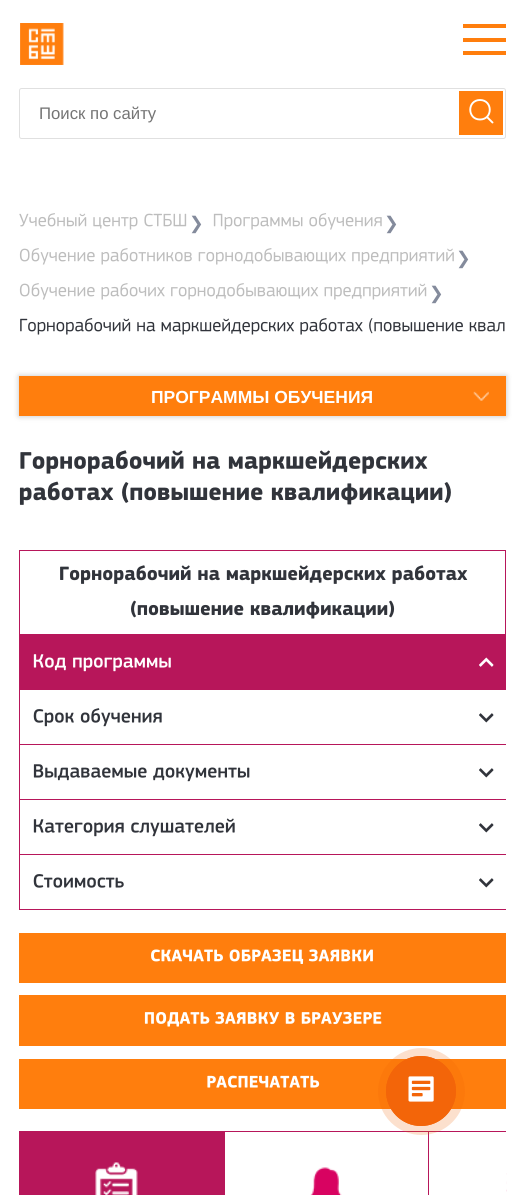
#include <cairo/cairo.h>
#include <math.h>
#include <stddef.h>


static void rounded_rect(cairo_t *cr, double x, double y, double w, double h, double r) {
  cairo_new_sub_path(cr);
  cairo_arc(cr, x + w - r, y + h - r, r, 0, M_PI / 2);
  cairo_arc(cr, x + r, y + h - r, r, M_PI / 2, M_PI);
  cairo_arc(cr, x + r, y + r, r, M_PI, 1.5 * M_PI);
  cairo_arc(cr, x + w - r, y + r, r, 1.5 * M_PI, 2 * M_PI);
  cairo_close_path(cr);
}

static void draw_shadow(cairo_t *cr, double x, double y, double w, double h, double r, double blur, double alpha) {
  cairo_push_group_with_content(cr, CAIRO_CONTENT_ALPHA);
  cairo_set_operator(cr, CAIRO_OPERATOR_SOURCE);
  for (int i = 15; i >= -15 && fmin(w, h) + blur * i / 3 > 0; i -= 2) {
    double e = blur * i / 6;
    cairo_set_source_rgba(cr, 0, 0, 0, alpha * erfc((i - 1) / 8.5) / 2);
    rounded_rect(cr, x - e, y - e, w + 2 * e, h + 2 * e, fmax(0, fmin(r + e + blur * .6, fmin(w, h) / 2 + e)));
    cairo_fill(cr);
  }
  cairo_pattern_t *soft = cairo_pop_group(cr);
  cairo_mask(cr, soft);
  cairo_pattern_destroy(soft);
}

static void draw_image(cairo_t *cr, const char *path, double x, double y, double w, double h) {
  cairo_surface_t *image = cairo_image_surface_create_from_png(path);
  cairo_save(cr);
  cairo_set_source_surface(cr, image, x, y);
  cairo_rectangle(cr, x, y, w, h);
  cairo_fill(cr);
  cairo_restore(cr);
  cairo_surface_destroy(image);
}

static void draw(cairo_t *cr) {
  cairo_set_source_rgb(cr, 1, 1, 1);
  cairo_paint(cr);
  cairo_set_source_rgb(cr, 1, 126 / 255.0, 13 / 255.0);
  cairo_rectangle(cr, 463, 24, 43, 4);
  cairo_fill(cr);
  cairo_rectangle(cr, 463, 38, 43, 4);
  cairo_fill(cr);
  cairo_rectangle(cr, 463, 51, 43, 4);
  cairo_fill(cr);
  draw_image(cr, "images/1.png", 20, 23, 44, 42);
  rounded_rect(cr, 19.5, 88.5, 486, 50, 2);
  cairo_set_source_rgb(cr, 224 / 255.0, 224 / 255.0, 224 / 255.0);
  cairo_set_line_width(cr, 1);
  cairo_stroke(cr);
  cairo_set_source_rgb(cr, 1, 126 / 255.0, 13 / 255.0);
  cairo_rectangle(cr, 459, 91, 44, 44);
  cairo_fill(cr);
  cairo_new_path(cr);
  cairo_move_to(cr, 480, 119.5);
  cairo_curve_to(cr, 493, 119.5, 493, 100, 480, 100);
  cairo_curve_to(cr, 467, 100, 467, 119.5, 480, 119.5);
  cairo_close_path(cr);
  cairo_move_to(cr, 487, 117);
  cairo_line_to(cr, 492.5, 122.5);
  cairo_set_source_rgb(cr, 1, 1, 1);
  cairo_set_line_width(cr, 1.9);
  cairo_set_line_cap(cr, CAIRO_LINE_CAP_ROUND);
  cairo_set_line_join(cr, CAIRO_LINE_JOIN_ROUND);
  cairo_stroke(cr);
  draw_image(cr, "images/2.png", 19, 213, 168, 17);
  draw_image(cr, "images/3.png", 213, 213, 169, 17);
  draw_image(cr, "images/4.png", 19, 248, 435, 17);
  draw_image(cr, "images/5.png", 19, 283, 408, 17);
  draw_image(cr, "images/6.png", 20, 318, 485, 17);
  cairo_set_source_rgb(cr, 0, 0, 0);
  draw_shadow(cr, 19, 376, 487, 40, 0, 3, 0.24);
  cairo_set_source_rgb(cr, 1, 126 / 255.0, 13 / 255.0);
  cairo_rectangle(cr, 19, 376, 487, 40);
  cairo_fill(cr);
  draw_image(cr, "images/7.png", 473, 391, 16, 10);
  draw_image(cr, "images/8.png", 20, 450, 408, 24);
  draw_image(cr, "images/9.png", 19, 481, 432, 24);
  cairo_set_source_rgb(cr, 183 / 255.0, 22 / 255.0, 90 / 255.0);
  cairo_rectangle(cr, 19, 550, 487, 1);
  cairo_fill(cr);
  cairo_rectangle(cr, 505, 550, 1, 84);
  cairo_fill(cr);
  cairo_rectangle(cr, 19, 550, 1, 84);
  cairo_fill(cr);
  draw_image(cr, "images/10.png", 60, 565, 408, 19);
  draw_image(cr, "images/11.png", 131, 600, 264, 19);
  cairo_rectangle(cr, 19, 634, 487, 56);
  cairo_fill(cr);
  draw_image(cr, "images/12.png", 33, 654, 138, 18);
  draw_image(cr, "images/13.png", 479, 657, 15, 10);
  cairo_rectangle(cr, 19, 689, 1, 56);
  cairo_fill(cr);
  draw_image(cr, "images/14.png", 33, 708, 129, 19);
  draw_image(cr, "images/15.png", 479, 713, 15, 10);
  cairo_rectangle(cr, 19, 744, 487, 1);
  cairo_fill(cr);
  cairo_rectangle(cr, 19, 744, 1, 56);
  cairo_fill(cr);
  draw_image(cr, "images/16.png", 33, 764, 217, 18);
  draw_image(cr, "images/15.png", 479, 768, 15, 10);
  cairo_rectangle(cr, 19, 799, 487, 1);
  cairo_fill(cr);
  cairo_rectangle(cr, 19, 799, 1, 56);
  cairo_fill(cr);
  draw_image(cr, "images/17.png", 33, 818, 202, 19);
  draw_image(cr, "images/15.png", 479, 823, 15, 10);
  cairo_rectangle(cr, 19, 909, 487, 1);
  cairo_fill(cr);
  cairo_rectangle(cr, 19, 854, 487, 1);
  cairo_fill(cr);
  cairo_rectangle(cr, 19, 854, 1, 56);
  cairo_fill(cr);
  draw_image(cr, "images/18.png", 33, 874, 91, 14);
  draw_image(cr, "images/15.png", 479, 878, 15, 10);
  cairo_set_source_rgb(cr, 1, 126 / 255.0, 13 / 255.0);
  cairo_rectangle(cr, 19, 933, 487, 50);
  cairo_fill(cr);
  draw_image(cr, "images/19.png", 151, 949, 222, 15);
  cairo_rectangle(cr, 19, 995, 487, 51);
  cairo_fill(cr);
  draw_image(cr, "images/20.png", 144, 1011, 238, 16);
  cairo_rectangle(cr, 19, 1059, 487, 50);
  cairo_fill(cr);
  draw_image(cr, "images/21.png", 207, 1075, 113, 13);
  cairo_set_source_rgb(cr, 183 / 255.0, 22 / 255.0, 90 / 255.0);
  cairo_rectangle(cr, 19, 1131, 205, 64);
  cairo_fill(cr);
  draw_image(cr, "images/22.png", 95, 1162, 43, 33);
  cairo_rectangle(cr, 224.5, 1131.5, 204, 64);
  cairo_set_line_width(cr, 1);
  cairo_set_line_cap(cr, CAIRO_LINE_CAP_BUTT);
  cairo_set_line_join(cr, CAIRO_LINE_JOIN_MITER);
  cairo_stroke(cr);
  draw_image(cr, "images/23.png", 310, 1167, 32, 28);
  cairo_save(cr);
  cairo_rectangle(cr, 0, 1131, 506, 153);
  cairo_clip(cr);
  cairo_rectangle(cr, 428.5, 1131.5, 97, 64);
  cairo_stroke(cr);
  cairo_restore(cr);
  draw_image(cr, "images/24.png", 506, 1173, 1, 19);
  cairo_set_source_rgba(cr, 243 / 255.0, 101 / 255.0, 9 / 255.0, 0.2);
  cairo_arc(cr, 421.5, 1091.5, 43.5, 0, 2 * M_PI);
  cairo_fill(cr);
  cairo_arc(cr, 421, 1091, 34.5, 0, 2 * M_PI);
  cairo_set_source_rgb(cr, 243 / 255.0, 101 / 255.0, 9 / 255.0);
  cairo_stroke(cr);
  cairo_arc(cr, 421, 1091, 35, 0, 2 * M_PI);
  cairo_fill(cr);
  draw_image(cr, "images/25.png", 408, 1076, 26, 26);
  cairo_select_font_face(cr, "Liberation Sans", CAIRO_FONT_SLANT_NORMAL, CAIRO_FONT_WEIGHT_NORMAL);
  cairo_set_font_size(cr, 16.75);
  cairo_set_source_rgb(cr, 117 / 255.0, 117 / 255.0, 117 / 255.0);
  cairo_move_to(cr, 39, 119);
  cairo_show_text(cr, "Поиск по сайту");
  cairo_select_font_face(cr, "DejaVu Sans", CAIRO_FONT_SLANT_NORMAL, CAIRO_FONT_WEIGHT_NORMAL);
  cairo_set_font_size(cr, 17.5);
  cairo_set_source_rgb(cr, 132 / 255.0, 139 / 255.0, 156 / 255.0);
  cairo_move_to(cr, 189, 229);
  cairo_show_text(cr, "❯");
  cairo_move_to(cr, 384, 229);
  cairo_show_text(cr, "❯");
  cairo_move_to(cr, 456, 264);
  cairo_show_text(cr, "❯");
  cairo_move_to(cr, 429, 299);
  cairo_show_text(cr, "❯");
  cairo_select_font_face(cr, "Liberation Sans", CAIRO_FONT_SLANT_NORMAL, CAIRO_FONT_WEIGHT_BOLD);
  cairo_set_source_rgb(cr, 1, 1, 1);
  cairo_move_to(cr, 151, 403);
  cairo_show_text(cr, "ПРОГРАММЫ ОБУЧЕНИЯ");
}

int main(void) {
  cairo_surface_t *surface = cairo_image_surface_create(CAIRO_FORMAT_RGB24, 525, 1195);
  cairo_t *cr = cairo_create(surface);
  cairo_font_options_t *options = cairo_font_options_create();
  cairo_font_options_set_hint_metrics(options, CAIRO_HINT_METRICS_OFF);
  cairo_font_options_set_hint_style(options, CAIRO_HINT_STYLE_NONE);
  cairo_set_font_options(cr, options);
  cairo_set_miter_limit(cr, 4);
  draw(cr);
  cairo_surface_write_to_png(surface, "out.png");
  cairo_font_options_destroy(options);
  cairo_destroy(cr);
  cairo_surface_destroy(surface);
  return 0;
}
